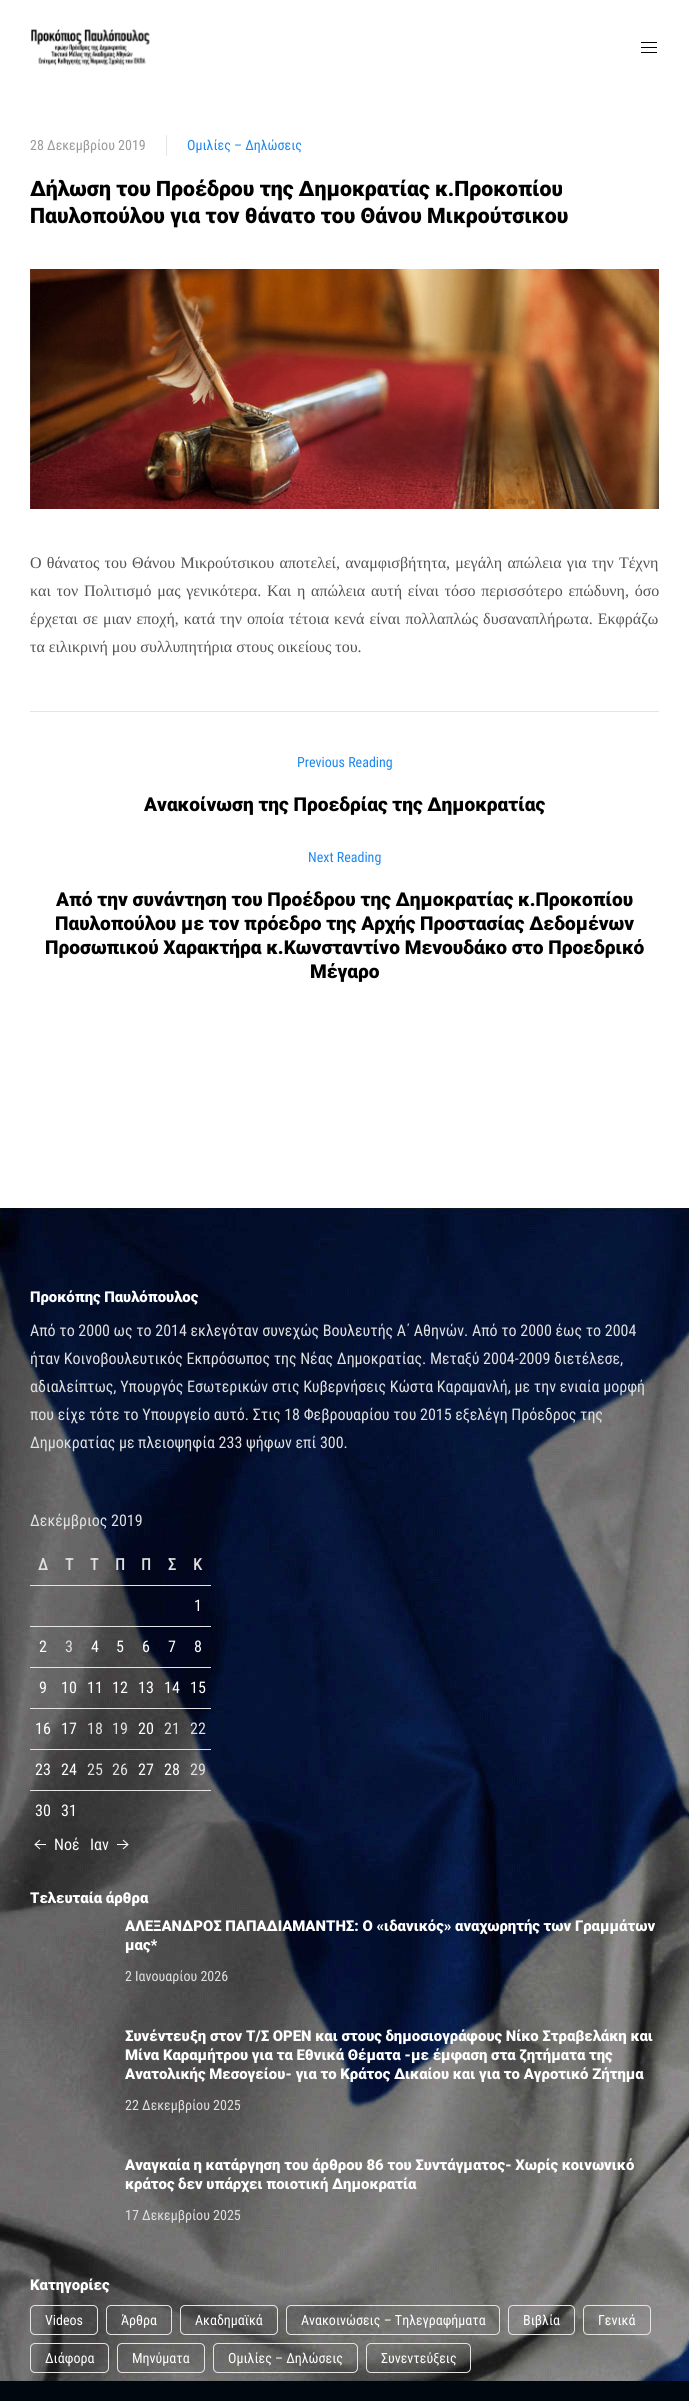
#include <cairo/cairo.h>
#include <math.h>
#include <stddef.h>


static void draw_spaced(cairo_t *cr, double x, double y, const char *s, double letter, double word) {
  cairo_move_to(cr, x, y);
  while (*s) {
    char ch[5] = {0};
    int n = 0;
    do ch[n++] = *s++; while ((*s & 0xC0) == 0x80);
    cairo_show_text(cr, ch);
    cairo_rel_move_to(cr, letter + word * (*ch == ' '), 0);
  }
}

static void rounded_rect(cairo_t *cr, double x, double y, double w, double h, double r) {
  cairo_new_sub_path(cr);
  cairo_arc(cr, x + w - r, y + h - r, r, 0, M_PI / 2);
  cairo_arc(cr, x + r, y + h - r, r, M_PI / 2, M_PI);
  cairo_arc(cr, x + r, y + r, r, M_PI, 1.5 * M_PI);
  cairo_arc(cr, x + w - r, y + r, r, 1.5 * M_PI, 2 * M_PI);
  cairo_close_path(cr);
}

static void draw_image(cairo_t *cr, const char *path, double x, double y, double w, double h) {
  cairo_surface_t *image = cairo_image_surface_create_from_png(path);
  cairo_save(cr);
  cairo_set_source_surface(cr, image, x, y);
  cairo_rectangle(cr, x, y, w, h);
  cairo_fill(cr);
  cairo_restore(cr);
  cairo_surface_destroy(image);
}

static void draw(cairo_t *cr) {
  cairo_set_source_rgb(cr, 1, 1, 1);
  cairo_paint(cr);
  draw_image(cr, "images/1.png", 31, 29, 119, 37);
  draw_image(cr, "images/2.png", 641, 42, 16, 11);
  cairo_set_source_rgb(cr, 229 / 255.0, 229 / 255.0, 229 / 255.0);
  cairo_rectangle(cr, 166, 135, 1, 21);
  cairo_fill(cr);
  draw_image(cr, "images/3.png", 30, 269, 629, 240);
  cairo_rectangle(cr, 30, 711, 629, 1);
  cairo_fill(cr);
  draw_image(cr, "images/4.png", 0, 1208, 689, 1173);
  cairo_rectangle(cr, 30, 1585, 181, 1);
  cairo_fill(cr);
  cairo_rectangle(cr, 30, 1626, 181, 1);
  cairo_fill(cr);
  cairo_rectangle(cr, 30, 1667, 181, 1);
  cairo_fill(cr);
  cairo_rectangle(cr, 30, 1708, 181, 1);
  cairo_fill(cr);
  cairo_rectangle(cr, 30, 1749, 181, 1);
  cairo_fill(cr);
  cairo_rectangle(cr, 30, 1790, 181, 1);
  cairo_fill(cr);
  draw_image(cr, "images/5.png", 34, 1839, 12, 11);
  draw_image(cr, "images/6.png", 117, 1839, 12, 11);
  rounded_rect(cr, 30.5, 2305.5, 67, 29, 4.5);
  cairo_set_line_width(cr, 1);
  cairo_stroke(cr);
  rounded_rect(cr, 106.5, 2305.5, 65, 29, 4.5);
  cairo_stroke(cr);
  rounded_rect(cr, 180.5, 2305.5, 97, 29, 4.5);
  cairo_stroke(cr);
  rounded_rect(cr, 286.5, 2305.5, 213, 29, 4.5);
  cairo_stroke(cr);
  rounded_rect(cr, 508.5, 2305.5, 66, 29, 4.5);
  cairo_stroke(cr);
  rounded_rect(cr, 583.5, 2305.5, 67, 29, 4.5);
  cairo_stroke(cr);
  rounded_rect(cr, 30.5, 2343.5, 78, 29, 4.5);
  cairo_stroke(cr);
  rounded_rect(cr, 117.5, 2343.5, 87, 29, 4.5);
  cairo_stroke(cr);
  rounded_rect(cr, 213.5, 2343.5, 144, 29, 4.5);
  cairo_stroke(cr);
  rounded_rect(cr, 366.5, 2343.5, 104, 29, 4.5);
  cairo_stroke(cr);
  cairo_set_source_rgb(cr, 1 / 255.0, 7 / 255.0, 14 / 255.0);
  cairo_rectangle(cr, 0, 2381, 689, 20);
  cairo_fill(cr);
  cairo_select_font_face(cr, "Roboto Condensed", CAIRO_FONT_SLANT_NORMAL, CAIRO_FONT_WEIGHT_NORMAL);
  cairo_set_font_size(cr, 14);
  cairo_set_source_rgb(cr, 153 / 255.0, 153 / 255.0, 153 / 255.0);
  cairo_move_to(cr, 30, 150);
  cairo_show_text(cr, "28 Δεκεμβρίου 2019");
  cairo_set_source_rgb(cr, 30 / 255.0, 135 / 255.0, 240 / 255.0);
  cairo_move_to(cr, 187, 150);
  cairo_show_text(cr, "Ομιλίες – Δηλώσεις");
  cairo_select_font_face(cr, "Roboto Black", CAIRO_FONT_SLANT_NORMAL, CAIRO_FONT_WEIGHT_NORMAL);
  cairo_set_font_size(cr, 21.25);
  cairo_set_source_rgb(cr, 0, 0, 0);
  cairo_move_to(cr, 30, 196);
  cairo_show_text(cr, "Δήλωση του Προέδρου της Δημοκρατίας κ.Προκοπίου");
  cairo_move_to(cr, 30, 223);
  cairo_show_text(cr, "Παυλοπούλου για τον θάνατο του Θάνου Μικρούτσικου");
  cairo_select_font_face(cr, "Liberation Serif", CAIRO_FONT_SLANT_NORMAL, CAIRO_FONT_WEIGHT_NORMAL);
  cairo_set_font_size(cr, 16);
  cairo_set_source_rgb(cr, 83 / 255.0, 83 / 255.0, 83 / 255.0);
  draw_spaced(cr, 30, 568, "Ο θάνατος του Θάνου Μικρούτσικου αποτελεί, αναμφισβήτητα, μεγάλη απώλεια για την Τέχνη", 0, 1.25);
  draw_spaced(cr, 30, 596, "και τον Πολιτισμό μας γενικότερα. Και η απώλεια αυτή είναι τόσο περισσότερο επώδυνη, όσο", 0, 1.75);
  draw_spaced(cr, 30, 624, "έρχεται σε μιαν εποχή, κατά την οποία τέτοια κενά είναι πολλαπλώς δυσαναπλήρωτα. Εκφράζω", 0, 1);
  cairo_move_to(cr, 30, 652);
  cairo_show_text(cr, "τα ειλικρινή μου συλλυπητήρια στους οικείους του.");
  cairo_select_font_face(cr, "Roboto Condensed", CAIRO_FONT_SLANT_NORMAL, CAIRO_FONT_WEIGHT_NORMAL);
  cairo_set_font_size(cr, 14);
  cairo_set_source_rgb(cr, 30 / 255.0, 135 / 255.0, 240 / 255.0);
  cairo_move_to(cr, 297, 767);
  cairo_show_text(cr, "Previous Reading");
  cairo_select_font_face(cr, "Roboto Black", CAIRO_FONT_SLANT_NORMAL, CAIRO_FONT_WEIGHT_NORMAL);
  cairo_set_font_size(cr, 19.1);
  cairo_set_source_rgb(cr, 0, 0, 0);
  cairo_move_to(cr, 144, 811);
  cairo_show_text(cr, "Ανακοίνωση της Προεδρίας της Δημοκρατίας");
  cairo_select_font_face(cr, "Roboto Condensed", CAIRO_FONT_SLANT_NORMAL, CAIRO_FONT_WEIGHT_NORMAL);
  cairo_set_font_size(cr, 14);
  cairo_set_source_rgb(cr, 30 / 255.0, 135 / 255.0, 240 / 255.0);
  cairo_move_to(cr, 308, 862);
  cairo_show_text(cr, "Next Reading");
  cairo_select_font_face(cr, "Roboto Black", CAIRO_FONT_SLANT_NORMAL, CAIRO_FONT_WEIGHT_NORMAL);
  cairo_set_font_size(cr, 19.1);
  cairo_set_source_rgb(cr, 0, 0, 0);
  cairo_move_to(cr, 56, 906);
  cairo_show_text(cr, "Από την συνάντηση του Προέδρου της Δημοκρατίας κ.Προκοπίου");
  cairo_move_to(cr, 55, 930);
  cairo_show_text(cr, "Παυλοπούλου με τον πρόεδρο της Αρχής Προστασίας Δεδομένων");
  cairo_move_to(cr, 45, 954);
  cairo_show_text(cr, "Προσωπικού Χαρακτήρα κ.Κωνσταντίνο Μενουδάκο στο Προεδρικό");
  cairo_move_to(cr, 310, 978);
  cairo_show_text(cr, "Μέγαρο");
  cairo_set_font_size(cr, 14.9);
  cairo_set_source_rgb(cr, 1, 1, 1);
  cairo_move_to(cr, 30, 1302);
  cairo_show_text(cr, "Προκόπης Παυλόπουλος");
  cairo_select_font_face(cr, "Roboto Condensed", CAIRO_FONT_SLANT_NORMAL, CAIRO_FONT_WEIGHT_NORMAL);
  cairo_set_font_size(cr, 16);
  cairo_set_source_rgb(cr, 224 / 255.0, 224 / 255.0, 224 / 255.0);
  cairo_move_to(cr, 30, 1336);
  cairo_show_text(cr, "Από το 2000 ως το 2014 εκλεγόταν συνεχώς Βουλευτής Α΄ Αθηνών. Από το 2000 έως το 2004");
  cairo_move_to(cr, 30, 1364);
  cairo_show_text(cr, "ήταν Κοινοβουλευτικός Εκπρόσωπος της Νέας Δημοκρατίας. Μεταξύ 2004-2009 διετέλεσε,");
  cairo_move_to(cr, 30, 1392);
  cairo_show_text(cr, "αδιαλείπτως, Υπουργός Εσωτερικών στις Κυβερνήσεις Κώστα Καραμανλή, με την ενιαία μορφή");
  cairo_move_to(cr, 30, 1420);
  cairo_show_text(cr, "που είχε τότε το Υπουργείο αυτό. Στις 18 Φεβρουαρίου του 2015 εξελέγη Πρόεδρος της");
  cairo_move_to(cr, 30, 1448);
  cairo_show_text(cr, "Δημοκρατίας με πλειοψηφία 233 ψήφων επί 300.");
  cairo_move_to(cr, 30, 1526);
  cairo_show_text(cr, "Δεκέμβριος 2019");
  cairo_select_font_face(cr, "Roboto Condensed", CAIRO_FONT_SLANT_NORMAL, CAIRO_FONT_WEIGHT_BOLD);
  cairo_move_to(cr, 38, 1570);
  cairo_show_text(cr, "Δ");
  cairo_move_to(cr, 65, 1570);
  cairo_show_text(cr, "Τ");
  cairo_move_to(cr, 90, 1570);
  cairo_show_text(cr, "Τ");
  cairo_move_to(cr, 115, 1570);
  cairo_show_text(cr, "Π");
  cairo_move_to(cr, 141, 1570);
  cairo_show_text(cr, "Π");
  cairo_move_to(cr, 168, 1570);
  cairo_show_text(cr, "Σ");
  cairo_move_to(cr, 193, 1570);
  cairo_show_text(cr, "Κ");
  cairo_select_font_face(cr, "Roboto Condensed", CAIRO_FONT_SLANT_NORMAL, CAIRO_FONT_WEIGHT_NORMAL);
  cairo_set_source_rgb(cr, 1, 1, 1);
  cairo_move_to(cr, 194, 1611);
  cairo_show_text(cr, "1");
  cairo_move_to(cr, 39, 1652);
  cairo_show_text(cr, "2");
  cairo_set_source_rgb(cr, 224 / 255.0, 224 / 255.0, 224 / 255.0);
  cairo_move_to(cr, 65, 1652);
  cairo_show_text(cr, "3");
  cairo_set_source_rgb(cr, 1, 1, 1);
  cairo_move_to(cr, 91, 1652);
  cairo_show_text(cr, "4");
  cairo_move_to(cr, 116, 1652);
  cairo_show_text(cr, "5");
  cairo_move_to(cr, 142, 1652);
  cairo_show_text(cr, "6");
  cairo_move_to(cr, 168, 1652);
  cairo_show_text(cr, "7");
  cairo_move_to(cr, 194, 1652);
  cairo_show_text(cr, "8");
  cairo_move_to(cr, 39, 1693);
  cairo_show_text(cr, "9");
  cairo_move_to(cr, 61, 1693);
  cairo_show_text(cr, "10");
  cairo_move_to(cr, 87, 1693);
  cairo_show_text(cr, "11");
  cairo_move_to(cr, 112, 1693);
  cairo_show_text(cr, "12");
  cairo_move_to(cr, 138, 1693);
  cairo_show_text(cr, "13");
  cairo_move_to(cr, 164, 1693);
  cairo_show_text(cr, "14");
  cairo_move_to(cr, 190, 1693);
  cairo_show_text(cr, "15");
  cairo_move_to(cr, 35, 1734);
  cairo_show_text(cr, "16");
  cairo_move_to(cr, 61, 1734);
  cairo_show_text(cr, "17");
  cairo_set_source_rgb(cr, 224 / 255.0, 224 / 255.0, 224 / 255.0);
  cairo_move_to(cr, 87, 1734);
  cairo_show_text(cr, "18");
  cairo_move_to(cr, 112, 1734);
  cairo_show_text(cr, "19");
  cairo_set_source_rgb(cr, 1, 1, 1);
  cairo_move_to(cr, 138, 1734);
  cairo_show_text(cr, "20");
  cairo_set_source_rgb(cr, 224 / 255.0, 224 / 255.0, 224 / 255.0);
  cairo_move_to(cr, 164, 1734);
  cairo_show_text(cr, "21");
  cairo_move_to(cr, 190, 1734);
  cairo_show_text(cr, "22");
  cairo_set_source_rgb(cr, 1, 1, 1);
  cairo_move_to(cr, 35, 1775);
  cairo_show_text(cr, "23");
  cairo_move_to(cr, 61, 1775);
  cairo_show_text(cr, "24");
  cairo_set_source_rgb(cr, 224 / 255.0, 224 / 255.0, 224 / 255.0);
  cairo_move_to(cr, 87, 1775);
  cairo_show_text(cr, "25");
  cairo_move_to(cr, 112, 1775);
  cairo_show_text(cr, "26");
  cairo_set_source_rgb(cr, 1, 1, 1);
  cairo_move_to(cr, 138, 1775);
  cairo_show_text(cr, "27");
  cairo_move_to(cr, 164, 1775);
  cairo_show_text(cr, "28");
  cairo_set_source_rgb(cr, 224 / 255.0, 224 / 255.0, 224 / 255.0);
  cairo_move_to(cr, 190, 1775);
  cairo_show_text(cr, "29");
  cairo_set_source_rgb(cr, 1, 1, 1);
  cairo_move_to(cr, 35, 1816);
  cairo_show_text(cr, "30");
  cairo_move_to(cr, 61, 1816);
  cairo_show_text(cr, "31");
  cairo_move_to(cr, 54, 1850);
  cairo_show_text(cr, "Νοέ");
  cairo_move_to(cr, 90, 1850);
  cairo_show_text(cr, "Ιαν");
  cairo_select_font_face(cr, "Roboto Black", CAIRO_FONT_SLANT_NORMAL, CAIRO_FONT_WEIGHT_NORMAL);
  cairo_set_font_size(cr, 14.9);
  cairo_move_to(cr, 30, 1903);
  cairo_show_text(cr, "Τελευταία άρθρα");
  cairo_move_to(cr, 125, 1931);
  cairo_show_text(cr, "ΑΛΕΞΑΝΔΡΟΣ ΠΑΠΑΔΙΑΜΑΝΤΗΣ: Ο «ιδανικός» αναχωρητής των Γραμμάτων");
  cairo_move_to(cr, 125, 1950);
  cairo_show_text(cr, "μας*");
  cairo_select_font_face(cr, "Roboto Condensed", CAIRO_FONT_SLANT_NORMAL, CAIRO_FONT_WEIGHT_NORMAL);
  cairo_set_font_size(cr, 14);
  cairo_set_source_rgb(cr, 224 / 255.0, 224 / 255.0, 224 / 255.0);
  cairo_move_to(cr, 125, 1981);
  cairo_show_text(cr, "2 Ιανουαρίου 2026");
  cairo_select_font_face(cr, "Roboto Black", CAIRO_FONT_SLANT_NORMAL, CAIRO_FONT_WEIGHT_NORMAL);
  cairo_set_font_size(cr, 14.9);
  cairo_set_source_rgb(cr, 1, 1, 1);
  cairo_move_to(cr, 125, 2041);
  cairo_show_text(cr, "Συνέντευξη στον Τ/Σ ΟΡΕΝ και στους δημοσιογράφους Νίκο Στραβελάκη και");
  cairo_move_to(cr, 125, 2060);
  cairo_show_text(cr, "Μίνα Καραμήτρου για τα Εθνικά Θέματα -με έμφαση στα ζητήματα της");
  cairo_move_to(cr, 125, 2079);
  cairo_show_text(cr, "Ανατολικής Μεσογείου- για το Κράτος Δικαίου και για το Αγροτικό Ζήτημα");
  cairo_select_font_face(cr, "Roboto Condensed", CAIRO_FONT_SLANT_NORMAL, CAIRO_FONT_WEIGHT_NORMAL);
  cairo_set_font_size(cr, 14);
  cairo_set_source_rgb(cr, 224 / 255.0, 224 / 255.0, 224 / 255.0);
  cairo_move_to(cr, 125, 2110);
  cairo_show_text(cr, "22 Δεκεμβρίου 2025");
  cairo_select_font_face(cr, "Roboto Black", CAIRO_FONT_SLANT_NORMAL, CAIRO_FONT_WEIGHT_NORMAL);
  cairo_set_font_size(cr, 14.9);
  cairo_set_source_rgb(cr, 1, 1, 1);
  cairo_move_to(cr, 125, 2170);
  cairo_show_text(cr, "Αναγκαία η κατάργηση του άρθρου 86 του Συντάγματος- Χωρίς κοινωνικό");
  cairo_move_to(cr, 125, 2189);
  cairo_show_text(cr, "κράτος δεν υπάρχει ποιοτική Δημοκρατία");
  cairo_select_font_face(cr, "Roboto Condensed", CAIRO_FONT_SLANT_NORMAL, CAIRO_FONT_WEIGHT_NORMAL);
  cairo_set_font_size(cr, 14);
  cairo_set_source_rgb(cr, 224 / 255.0, 224 / 255.0, 224 / 255.0);
  cairo_move_to(cr, 125, 2220);
  cairo_show_text(cr, "17 Δεκεμβρίου 2025");
  cairo_select_font_face(cr, "Roboto Black", CAIRO_FONT_SLANT_NORMAL, CAIRO_FONT_WEIGHT_NORMAL);
  cairo_set_font_size(cr, 14.9);
  cairo_set_source_rgb(cr, 1, 1, 1);
  cairo_move_to(cr, 30, 2290);
  cairo_show_text(cr, "Κατηγορίες");
  cairo_select_font_face(cr, "Roboto Condensed", CAIRO_FONT_SLANT_NORMAL, CAIRO_FONT_WEIGHT_NORMAL);
  cairo_set_font_size(cr, 14);
  cairo_move_to(cr, 45, 2325);
  cairo_show_text(cr, "Videos");
  cairo_move_to(cr, 121, 2325);
  cairo_show_text(cr, "Άρθρα");
  cairo_move_to(cr, 195, 2325);
  cairo_show_text(cr, "Ακαδημαϊκά");
  cairo_move_to(cr, 301, 2325);
  cairo_show_text(cr, "Ανακοινώσεις – Τηλεγραφήματα");
  cairo_move_to(cr, 523, 2325);
  cairo_show_text(cr, "Βιβλία");
  cairo_move_to(cr, 598, 2325);
  cairo_show_text(cr, "Γενικά");
  cairo_move_to(cr, 45, 2363);
  cairo_show_text(cr, "Διάφορα");
  cairo_move_to(cr, 132, 2363);
  cairo_show_text(cr, "Μηνύματα");
  cairo_move_to(cr, 228, 2363);
  cairo_show_text(cr, "Ομιλίες – Δηλώσεις");
  cairo_move_to(cr, 381, 2363);
  cairo_show_text(cr, "Συνεντεύξεις");
}

int main(void) {
  cairo_surface_t *surface = cairo_image_surface_create(CAIRO_FORMAT_RGB24, 689, 2401);
  cairo_t *cr = cairo_create(surface);
  cairo_font_options_t *options = cairo_font_options_create();
  cairo_font_options_set_hint_metrics(options, CAIRO_HINT_METRICS_OFF);
  cairo_font_options_set_hint_style(options, CAIRO_HINT_STYLE_NONE);
  cairo_set_font_options(cr, options);
  cairo_set_miter_limit(cr, 4);
  draw(cr);
  cairo_surface_write_to_png(surface, "out.png");
  cairo_font_options_destroy(options);
  cairo_destroy(cr);
  cairo_surface_destroy(surface);
  return 0;
}
